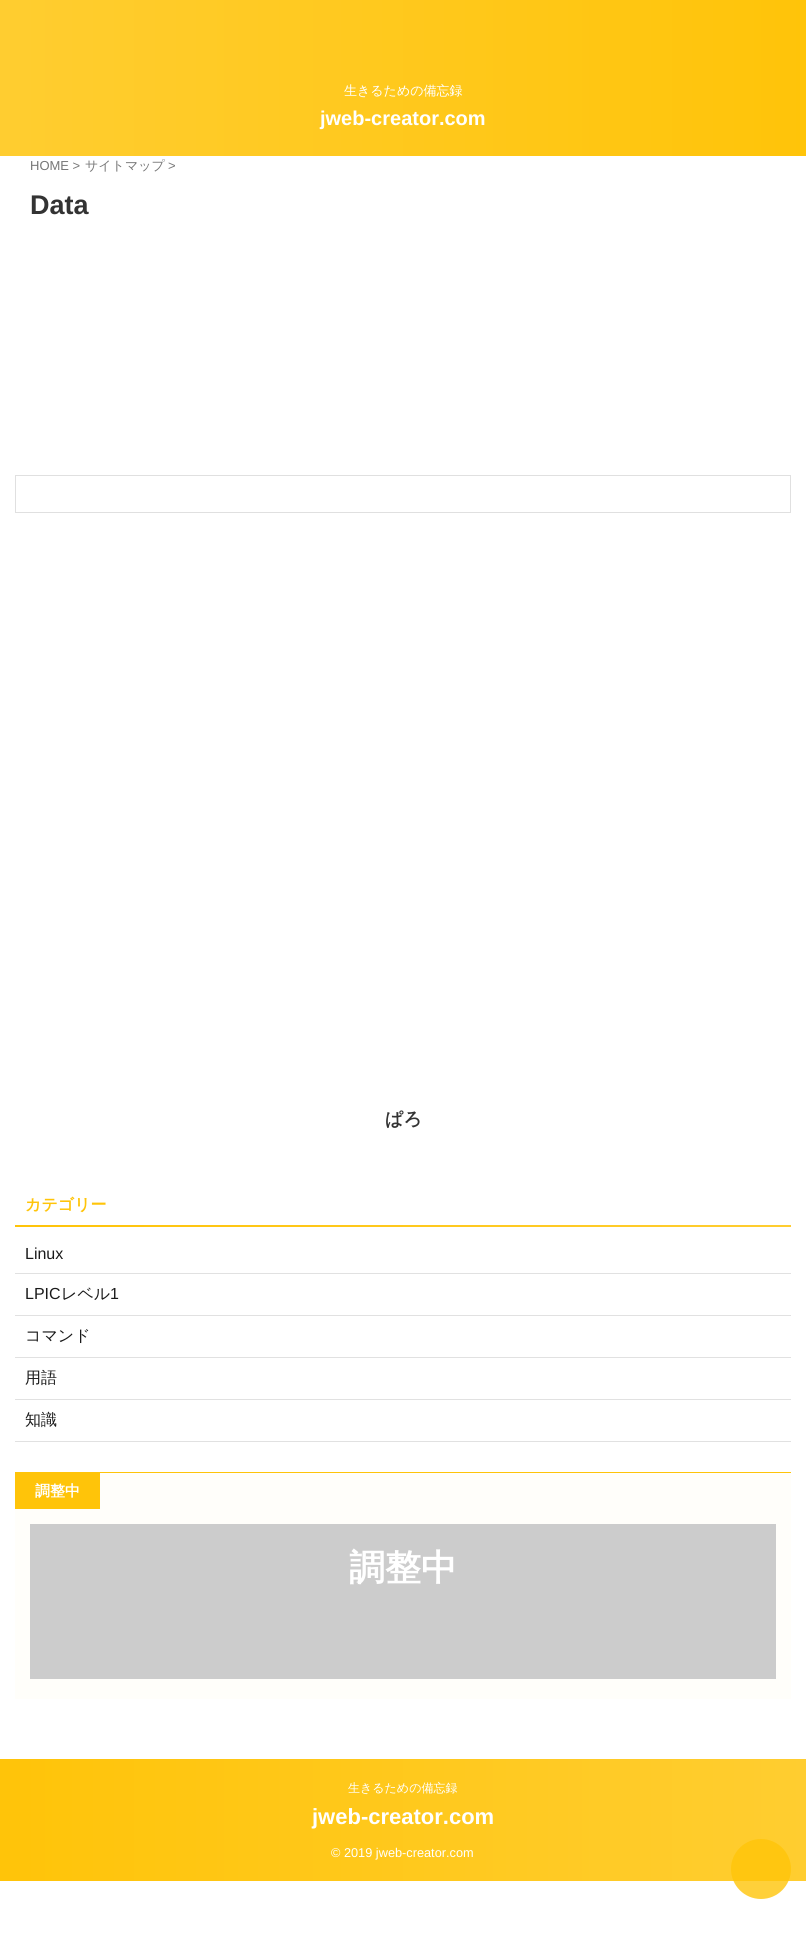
#include <cairo/cairo.h>
#include <math.h>
#include <stddef.h>


static void draw(cairo_t *cr) {
  cairo_pattern_t *gradient;
  cairo_set_source_rgb(cr, 1, 1, 1);
  cairo_paint(cr);
  gradient = cairo_pattern_create_linear(806, 78, 0, 78);
  cairo_pattern_add_color_stop_rgba(gradient, 0, 1, 196 / 255.0, 9 / 255.0, 1);
  cairo_pattern_add_color_stop_rgba(gradient, 1, 1, 205 / 255.0, 48 / 255.0, 1);
  cairo_set_source(cr, gradient);
  cairo_pattern_destroy(gradient);
  cairo_rectangle(cr, 0, 0, 806, 156);
  cairo_fill(cr);
  cairo_rectangle(cr, 15.5, 475.5, 775, 37);
  cairo_set_source_rgb(cr, 224 / 255.0, 224 / 255.0, 224 / 255.0);
  cairo_set_line_width(cr, 1);
  cairo_stroke(cr);
  gradient = cairo_pattern_create_linear(791, 1226, 15, 1226);
  cairo_pattern_add_color_stop_rgba(gradient, 0, 1, 205 / 255.0, 48 / 255.0, 1);
  cairo_pattern_add_color_stop_rgba(gradient, 1, 1, 196 / 255.0, 9 / 255.0, 1);
  cairo_set_source(cr, gradient);
  cairo_pattern_destroy(gradient);
  cairo_rectangle(cr, 15, 1225, 776, 2);
  cairo_fill(cr);
  cairo_set_source_rgb(cr, 225 / 255.0, 225 / 255.0, 225 / 255.0);
  cairo_rectangle(cr, 15, 1273, 776, 1);
  cairo_fill(cr);
  cairo_rectangle(cr, 15, 1315, 776, 1);
  cairo_fill(cr);
  cairo_rectangle(cr, 15, 1357, 776, 1);
  cairo_fill(cr);
  cairo_rectangle(cr, 15, 1399, 776, 1);
  cairo_fill(cr);
  cairo_rectangle(cr, 15, 1441, 776, 1);
  cairo_fill(cr);
  cairo_set_source_rgb(cr, 1, 254 / 255.0, 250 / 255.0);
  cairo_rectangle(cr, 15, 1473, 776, 226);
  cairo_fill(cr);
  cairo_set_source_rgb(cr, 1, 196 / 255.0, 9 / 255.0);
  cairo_rectangle(cr, 15, 1472, 776, 1);
  cairo_fill(cr);
  cairo_rectangle(cr, 15, 1473, 85, 36);
  cairo_fill(cr);
  cairo_set_source_rgb(cr, 204 / 255.0, 204 / 255.0, 204 / 255.0);
  cairo_rectangle(cr, 30, 1524, 746, 155);
  cairo_fill(cr);
  gradient = cairo_pattern_create_linear(806, 1820, 0, 1820);
  cairo_pattern_add_color_stop_rgba(gradient, 0, 1, 205 / 255.0, 48 / 255.0, 1);
  cairo_pattern_add_color_stop_rgba(gradient, 1, 1, 196 / 255.0, 9 / 255.0, 1);
  cairo_set_source(cr, gradient);
  cairo_pattern_destroy(gradient);
  cairo_rectangle(cr, 0, 1759, 806, 122);
  cairo_fill(cr);
  cairo_set_source_rgba(cr, 1, 196 / 255.0, 9 / 255.0, 0.8);
  cairo_arc(cr, 761, 1869, 30, 0, 2 * M_PI);
  cairo_fill(cr);
  cairo_select_font_face(cr, "WenQuanYi Zen Hei Medium", CAIRO_FONT_SLANT_NORMAL, CAIRO_FONT_WEIGHT_NORMAL);
  cairo_set_font_size(cr, 13);
  cairo_set_source_rgb(cr, 1, 1, 1);
  cairo_move_to(cr, 344, 95);
  cairo_show_text(cr, "生きるための備忘録");
  cairo_select_font_face(cr, "Liberation Sans", CAIRO_FONT_SLANT_NORMAL, CAIRO_FONT_WEIGHT_BOLD);
  cairo_set_font_size(cr, 20);
  cairo_move_to(cr, 320, 125);
  cairo_show_text(cr, "jweb-creator.com");
  cairo_select_font_face(cr, "Liberation Sans", CAIRO_FONT_SLANT_NORMAL, CAIRO_FONT_WEIGHT_NORMAL);
  cairo_set_font_size(cr, 13);
  cairo_set_source_rgb(cr, 119 / 255.0, 119 / 255.0, 119 / 255.0);
  cairo_move_to(cr, 30, 170);
  cairo_show_text(cr, "HOME >");
  cairo_select_font_face(cr, "WenQuanYi Zen Hei Medium", CAIRO_FONT_SLANT_NORMAL, CAIRO_FONT_WEIGHT_NORMAL);
  cairo_move_to(cr, 85, 170);
  cairo_show_text(cr, "サイトマップ");
  cairo_select_font_face(cr, "Liberation Sans", CAIRO_FONT_SLANT_NORMAL, CAIRO_FONT_WEIGHT_NORMAL);
  cairo_move_to(cr, 168, 170);
  cairo_show_text(cr, ">");
  cairo_select_font_face(cr, "Liberation Sans", CAIRO_FONT_SLANT_NORMAL, CAIRO_FONT_WEIGHT_BOLD);
  cairo_set_font_size(cr, 27);
  cairo_set_source_rgb(cr, 51 / 255.0, 51 / 255.0, 51 / 255.0);
  cairo_move_to(cr, 30, 214);
  cairo_show_text(cr, "Data");
  cairo_select_font_face(cr, "WenQuanYi Zen Hei", CAIRO_FONT_SLANT_NORMAL, CAIRO_FONT_WEIGHT_BOLD);
  cairo_set_font_size(cr, 18);
  cairo_move_to(cr, 385, 1125);
  cairo_show_text(cr, "ぱろ");
  cairo_set_font_size(cr, 16);
  cairo_set_source_rgb(cr, 1, 196 / 255.0, 9 / 255.0);
  cairo_move_to(cr, 25, 1210);
  cairo_show_text(cr, "カテゴリー");
  cairo_select_font_face(cr, "Liberation Sans", CAIRO_FONT_SLANT_NORMAL, CAIRO_FONT_WEIGHT_NORMAL);
  cairo_set_source_rgb(cr, 26 / 255.0, 26 / 255.0, 26 / 255.0);
  cairo_move_to(cr, 25, 1259);
  cairo_show_text(cr, "Linux");
  cairo_move_to(cr, 25, 1299);
  cairo_show_text(cr, "LPIC");
  cairo_select_font_face(cr, "WenQuanYi Zen Hei Medium", CAIRO_FONT_SLANT_NORMAL, CAIRO_FONT_WEIGHT_NORMAL);
  cairo_move_to(cr, 61, 1299);
  cairo_show_text(cr, "レベル");
  cairo_select_font_face(cr, "Liberation Sans", CAIRO_FONT_SLANT_NORMAL, CAIRO_FONT_WEIGHT_NORMAL);
  cairo_move_to(cr, 110, 1299);
  cairo_show_text(cr, "1");
  cairo_select_font_face(cr, "WenQuanYi Zen Hei Medium", CAIRO_FONT_SLANT_NORMAL, CAIRO_FONT_WEIGHT_NORMAL);
  cairo_move_to(cr, 25, 1341);
  cairo_show_text(cr, "コマンド");
  cairo_move_to(cr, 25, 1383);
  cairo_show_text(cr, "用語");
  cairo_move_to(cr, 25, 1425);
  cairo_show_text(cr, "知識");
  cairo_select_font_face(cr, "WenQuanYi Zen Hei", CAIRO_FONT_SLANT_NORMAL, CAIRO_FONT_WEIGHT_BOLD);
  cairo_set_font_size(cr, 15);
  cairo_set_source_rgb(cr, 1, 1, 1);
  cairo_move_to(cr, 35, 1496);
  cairo_show_text(cr, "調整中");
  cairo_set_font_size(cr, 36);
  cairo_move_to(cr, 349, 1580);
  cairo_show_text(cr, "調整中");
  cairo_select_font_face(cr, "WenQuanYi Zen Hei Medium", CAIRO_FONT_SLANT_NORMAL, CAIRO_FONT_WEIGHT_NORMAL);
  cairo_set_font_size(cr, 12);
  cairo_move_to(cr, 348, 1792);
  cairo_show_text(cr, "生きるための備忘録");
  cairo_select_font_face(cr, "Liberation Sans", CAIRO_FONT_SLANT_NORMAL, CAIRO_FONT_WEIGHT_BOLD);
  cairo_set_font_size(cr, 22);
  cairo_move_to(cr, 312, 1824);
  cairo_show_text(cr, "jweb-creator.com");
  cairo_select_font_face(cr, "Liberation Sans", CAIRO_FONT_SLANT_NORMAL, CAIRO_FONT_WEIGHT_NORMAL);
  cairo_set_font_size(cr, 12.75);
  cairo_move_to(cr, 331, 1857);
  cairo_show_text(cr, "© 2019 jweb-creator.com");
}

int main(void) {
  cairo_surface_t *surface = cairo_image_surface_create(CAIRO_FORMAT_RGB24, 806, 1939);
  cairo_t *cr = cairo_create(surface);
  cairo_font_options_t *options = cairo_font_options_create();
  cairo_font_options_set_hint_metrics(options, CAIRO_HINT_METRICS_OFF);
  cairo_font_options_set_hint_style(options, CAIRO_HINT_STYLE_NONE);
  cairo_set_font_options(cr, options);
  cairo_set_miter_limit(cr, 4);
  draw(cr);
  cairo_surface_write_to_png(surface, "out.png");
  cairo_font_options_destroy(options);
  cairo_destroy(cr);
  cairo_surface_destroy(surface);
  return 0;
}
